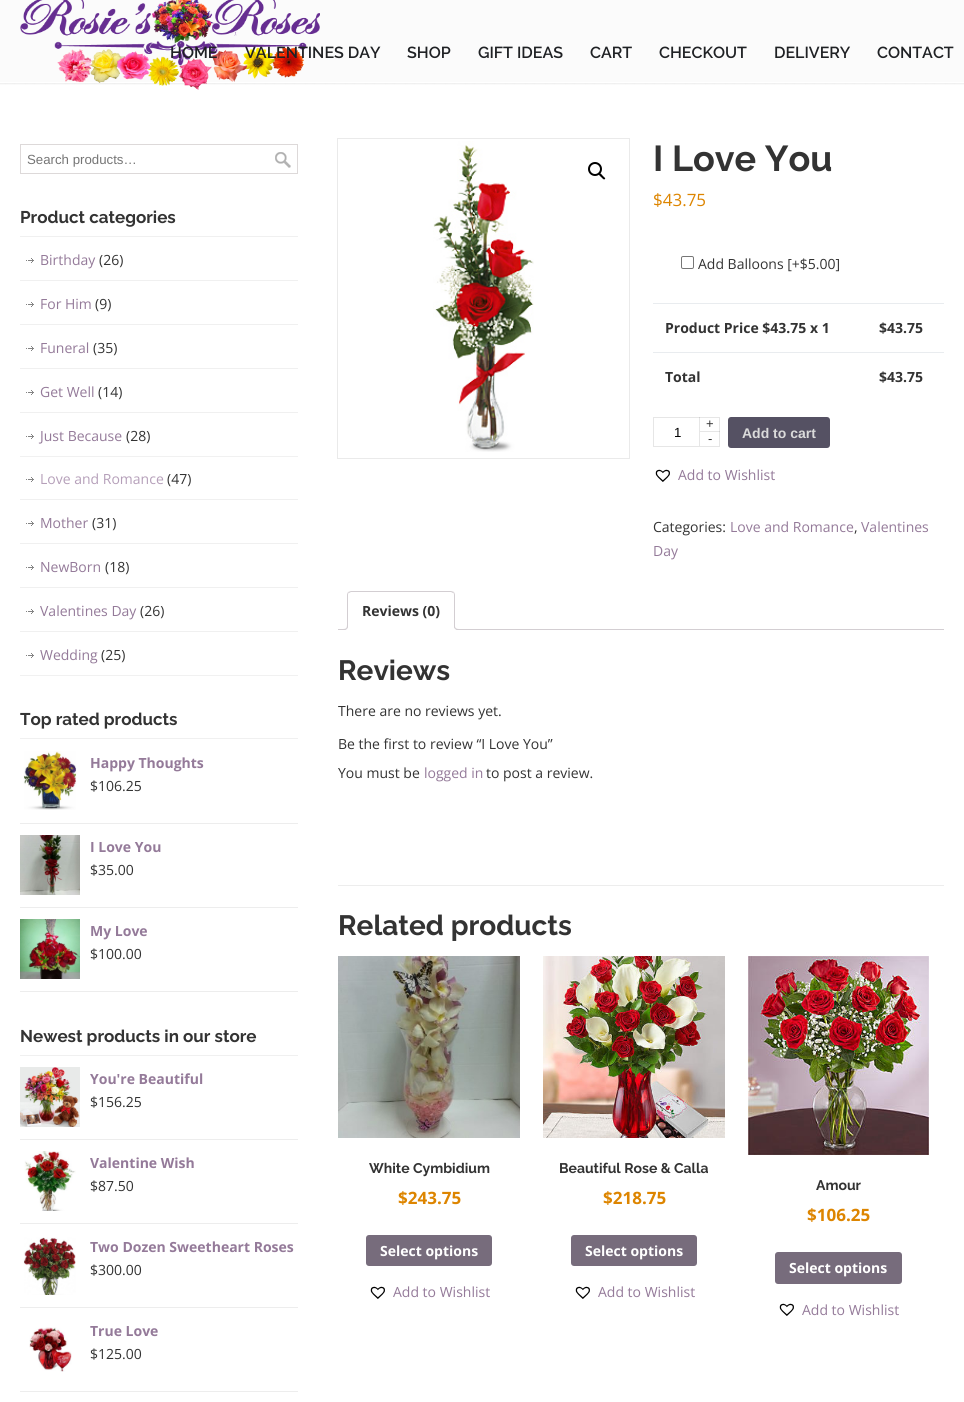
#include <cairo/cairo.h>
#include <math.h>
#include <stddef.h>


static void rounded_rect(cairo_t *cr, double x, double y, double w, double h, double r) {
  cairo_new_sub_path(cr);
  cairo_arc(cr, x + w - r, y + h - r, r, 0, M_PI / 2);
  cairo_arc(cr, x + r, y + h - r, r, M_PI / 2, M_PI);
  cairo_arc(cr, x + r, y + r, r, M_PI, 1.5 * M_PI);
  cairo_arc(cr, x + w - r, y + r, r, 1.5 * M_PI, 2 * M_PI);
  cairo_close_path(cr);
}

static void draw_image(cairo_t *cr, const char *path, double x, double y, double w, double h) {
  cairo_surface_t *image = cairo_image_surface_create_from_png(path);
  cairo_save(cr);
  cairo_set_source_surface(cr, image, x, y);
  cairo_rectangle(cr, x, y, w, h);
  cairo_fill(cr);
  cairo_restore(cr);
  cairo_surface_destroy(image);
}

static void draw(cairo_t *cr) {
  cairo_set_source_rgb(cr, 251 / 255.0, 251 / 255.0, 251 / 255.0);
  cairo_paint(cr);
  cairo_set_source_rgb(cr, 1, 1, 1);
  cairo_rectangle(cr, 0, 82, 964, 1320);
  cairo_fill(cr);
  draw_image(cr, "images/2.png", 0, 83, 964, 2);
  draw_image(cr, "images/1.png", 20, 0, 300, 90);
  cairo_rectangle(cr, 20.5, 144.5, 277, 29);
  cairo_set_source_rgb(cr, 221 / 255.0, 217 / 255.0, 217 / 255.0);
  cairo_set_line_width(cr, 1);
  cairo_stroke(cr);
  draw_image(cr, "images/3.png", 275, 152, 16, 16);
  cairo_set_source_rgb(cr, 240 / 255.0, 240 / 255.0, 240 / 255.0);
  cairo_rectangle(cr, 20, 236, 278, 1);
  cairo_fill(cr);
  cairo_rectangle(cr, 20, 280, 278, 1);
  cairo_fill(cr);
  draw_image(cr, "images/4.png", 26, 258, 8, 5);
  cairo_rectangle(cr, 20, 324, 278, 1);
  cairo_fill(cr);
  draw_image(cr, "images/4.png", 26, 302, 8, 5);
  cairo_rectangle(cr, 20, 368, 278, 1);
  cairo_fill(cr);
  draw_image(cr, "images/4.png", 26, 346, 8, 5);
  cairo_rectangle(cr, 20, 412, 278, 1);
  cairo_fill(cr);
  draw_image(cr, "images/4.png", 26, 390, 8, 5);
  cairo_set_source_rgb(cr, 241 / 255.0, 241 / 255.0, 241 / 255.0);
  cairo_rectangle(cr, 20, 456, 278, 1);
  cairo_fill(cr);
  draw_image(cr, "images/4.png", 26, 434, 8, 5);
  cairo_set_source_rgb(cr, 240 / 255.0, 240 / 255.0, 240 / 255.0);
  cairo_rectangle(cr, 20, 499, 278, 1);
  cairo_fill(cr);
  draw_image(cr, "images/4.png", 26, 477, 8, 5);
  cairo_rectangle(cr, 20, 543, 278, 1);
  cairo_fill(cr);
  draw_image(cr, "images/4.png", 26, 521, 8, 5);
  cairo_rectangle(cr, 20, 587, 278, 1);
  cairo_fill(cr);
  draw_image(cr, "images/4.png", 26, 565, 8, 5);
  cairo_rectangle(cr, 20, 631, 278, 1);
  cairo_fill(cr);
  draw_image(cr, "images/4.png", 26, 609, 8, 5);
  cairo_set_source_rgb(cr, 241 / 255.0, 241 / 255.0, 241 / 255.0);
  cairo_rectangle(cr, 20, 675, 278, 1);
  cairo_fill(cr);
  draw_image(cr, "images/4.png", 26, 653, 8, 5);
  cairo_set_source_rgb(cr, 240 / 255.0, 240 / 255.0, 240 / 255.0);
  cairo_rectangle(cr, 20, 738, 278, 1);
  cairo_fill(cr);
  cairo_set_source_rgb(cr, 237 / 255.0, 237 / 255.0, 237 / 255.0);
  cairo_rectangle(cr, 20, 823, 278, 1);
  cairo_fill(cr);
  draw_image(cr, "images/5.png", 23, 751, 54, 59);
  cairo_rectangle(cr, 20, 907, 278, 1);
  cairo_fill(cr);
  draw_image(cr, "images/6.png", 20, 835, 60, 60);
  cairo_rectangle(cr, 20, 991, 278, 1);
  cairo_fill(cr);
  draw_image(cr, "images/7.png", 20, 919, 60, 60);
  cairo_set_source_rgb(cr, 240 / 255.0, 240 / 255.0, 240 / 255.0);
  cairo_rectangle(cr, 20, 1055, 278, 1);
  cairo_fill(cr);
  cairo_set_source_rgb(cr, 237 / 255.0, 237 / 255.0, 237 / 255.0);
  cairo_rectangle(cr, 20, 1139, 278, 1);
  cairo_fill(cr);
  draw_image(cr, "images/8.png", 20, 1067, 60, 60);
  cairo_rectangle(cr, 20, 1223, 278, 1);
  cairo_fill(cr);
  draw_image(cr, "images/9.png", 24, 1151, 52, 60);
  cairo_rectangle(cr, 20, 1307, 278, 1);
  cairo_fill(cr);
  draw_image(cr, "images/10.png", 23, 1237, 53, 58);
  cairo_rectangle(cr, 20, 1391, 278, 1);
  cairo_fill(cr);
  draw_image(cr, "images/11.png", 29, 1327, 43, 45);
  cairo_rectangle(cr, 337.5, 138.5, 292, 320);
  cairo_set_source_rgb(cr, 234 / 255.0, 234 / 255.0, 234 / 255.0);
  cairo_stroke(cr);
  draw_image(cr, "images/12.png", 433, 141, 101, 311);
  cairo_arc(cr, 595, 169, 6, 0, 2 * M_PI);
  cairo_set_source_rgb(cr, 0, 0, 0);
  cairo_set_line_width(cr, 2);
  cairo_stroke(cr);
  cairo_new_path(cr);
  cairo_move_to(cr, 599, 173.5);
  cairo_curve_to(cr, 600.5, 172.5, 602, 175, 602.5, 175.5);
  cairo_curve_to(cr, 603, 176.5, 606, 178, 605, 179);
  cairo_curve_to(cr, 603.5, 180.5, 602, 177.5, 601, 177);
  cairo_curve_to(cr, 600.5, 176.5, 598, 174.5, 599, 173.5);
  cairo_close_path(cr);
  cairo_fill(cr);
  rounded_rect(cr, 681.5, 256.5, 12, 12, 1.5);
  cairo_set_source_rgb(cr, 118 / 255.0, 118 / 255.0, 118 / 255.0);
  cairo_set_line_width(cr, 1);
  cairo_stroke(cr);
  cairo_set_source_rgb(cr, 233 / 255.0, 236 / 255.0, 239 / 255.0);
  cairo_rectangle(cr, 653, 303, 291, 1);
  cairo_fill(cr);
  cairo_rectangle(cr, 653, 352, 291, 1);
  cairo_fill(cr);
  cairo_rectangle(cr, 653.5, 417.5, 66, 29);
  cairo_set_source_rgb(cr, 230 / 255.0, 230 / 255.0, 230 / 255.0);
  cairo_stroke(cr);
  cairo_set_source_rgba(cr, 0, 0, 0, 0.1);
  cairo_new_path(cr);
  cairo_move_to(cr, 720, 432);
  cairo_line_to(cr, 699, 432);
  cairo_line_to(cr, 700, 431);
  cairo_line_to(cr, 720, 431);
  cairo_close_path(cr);
  cairo_fill(cr);
  cairo_new_path(cr);
  cairo_move_to(cr, 699, 432);
  cairo_line_to(cr, 699, 417);
  cairo_line_to(cr, 700, 417);
  cairo_line_to(cr, 700, 431);
  cairo_close_path(cr);
  cairo_fill(cr);
  cairo_set_source_rgb(cr, 230 / 255.0, 230 / 255.0, 230 / 255.0);
  cairo_rectangle(cr, 699, 432, 1, 14);
  cairo_fill(cr);
  cairo_set_source_rgb(cr, 85 / 255.0, 81 / 255.0, 99 / 255.0);
  rounded_rect(cr, 728, 417, 102, 31, 3);
  cairo_fill(cr);
  draw_image(cr, "images/13.png", 655, 469, 15, 13);
  cairo_set_source_rgb(cr, 211 / 255.0, 206 / 255.0, 210 / 255.0);
  cairo_rectangle(cr, 338, 629, 606, 1);
  cairo_fill(cr);
  cairo_set_source_rgb(cr, 1, 1, 1);
  cairo_new_path(cr);
  cairo_move_to(cr, 351, 591);
  cairo_line_to(cr, 451, 591);
  cairo_curve_to(cr, 453, 591, 455, 593, 455, 595);
  cairo_line_to(cr, 455, 630);
  cairo_line_to(cr, 347, 630);
  cairo_line_to(cr, 347, 595);
  cairo_curve_to(cr, 347, 593, 349, 591, 351, 591);
  cairo_close_path(cr);
  cairo_fill(cr);
  cairo_set_source_rgb(cr, 211 / 255.0, 206 / 255.0, 210 / 255.0);
  cairo_new_path(cr);
  cairo_move_to(cr, 351, 591);
  cairo_line_to(cr, 348, 592);
  cairo_line_to(cr, 349, 593);
  cairo_line_to(cr, 351, 592);
  cairo_line_to(cr, 451, 592);
  cairo_line_to(cr, 453, 593);
  cairo_line_to(cr, 454, 592);
  cairo_line_to(cr, 451, 591);
  cairo_close_path(cr);
  cairo_fill(cr);
  cairo_new_path(cr);
  cairo_move_to(cr, 455, 630);
  cairo_line_to(cr, 455, 595);
  cairo_curve_to(cr, 455, 594, 454.5, 593, 454, 592);
  cairo_line_to(cr, 453, 593);
  cairo_curve_to(cr, 454, 593, 454, 594, 454, 595);
  cairo_line_to(cr, 454, 629);
  cairo_close_path(cr);
  cairo_fill(cr);
  cairo_set_source_rgb(cr, 1, 1, 1);
  cairo_new_path(cr);
  cairo_move_to(cr, 455, 630);
  cairo_line_to(cr, 454, 629);
  cairo_line_to(cr, 348, 629);
  cairo_line_to(cr, 347, 630);
  cairo_close_path(cr);
  cairo_fill(cr);
  cairo_set_source_rgb(cr, 211 / 255.0, 206 / 255.0, 210 / 255.0);
  cairo_new_path(cr);
  cairo_move_to(cr, 347, 630);
  cairo_line_to(cr, 348, 629);
  cairo_line_to(cr, 348, 595);
  cairo_curve_to(cr, 348, 594, 348, 593, 349, 593);
  cairo_line_to(cr, 348, 592);
  cairo_curve_to(cr, 347.5, 593, 347, 594, 347, 595);
  cairo_close_path(cr);
  cairo_fill(cr);
  cairo_save(cr);
  cairo_rectangle(cr, 338, 591, 606, 39);
  cairo_clip(cr);
  cairo_set_source_rgb(cr, 1, 1, 1);
  cairo_new_path(cr);
  cairo_move_to(cr, 345, 630);
  cairo_line_to(cr, 345, 632);
  cairo_curve_to(cr, 348.5, 632, 350, 630.5, 350, 627);
  cairo_line_to(cr, 348, 627);
  cairo_curve_to(cr, 347.5, 628.5, 346.5, 629.5, 345, 630);
  cairo_close_path(cr);
  cairo_fill(cr);
  cairo_restore(cr);
  cairo_set_fill_rule(cr, CAIRO_FILL_RULE_EVEN_ODD);
  cairo_new_path(cr);
  cairo_move_to(cr, 343, 625);
  cairo_line_to(cr, 348, 625);
  cairo_curve_to(cr, 348, 628.5, 346.5, 630, 343, 630);
  cairo_close_path(cr);
  cairo_move_to(cr, 343, 625);
  cairo_line_to(cr, 347, 625);
  cairo_curve_to(cr, 347, 628, 346, 629, 343, 629);
  cairo_close_path(cr);
  cairo_fill(cr);
  cairo_save(cr);
  cairo_set_fill_rule(cr, CAIRO_FILL_RULE_WINDING);
  cairo_rectangle(cr, 338, 591, 606, 39);
  cairo_clip(cr);
  cairo_set_source_rgb(cr, 1, 1, 1);
  cairo_new_path(cr);
  cairo_move_to(cr, 452, 627);
  cairo_curve_to(cr, 452, 630.5, 453.5, 632, 457, 632);
  cairo_line_to(cr, 457, 630);
  cairo_curve_to(cr, 455.5, 629.5, 454.5, 628.5, 454, 627);
  cairo_close_path(cr);
  cairo_fill(cr);
  cairo_restore(cr);
  cairo_new_path(cr);
  cairo_move_to(cr, 454, 625);
  cairo_line_to(cr, 459, 625);
  cairo_line_to(cr, 459, 630);
  cairo_curve_to(cr, 456.5, 630, 454, 629, 454, 626);
  cairo_close_path(cr);
  cairo_move_to(cr, 455, 625);
  cairo_line_to(cr, 459, 625);
  cairo_line_to(cr, 459, 629);
  cairo_curve_to(cr, 457, 629, 455, 628.5, 455, 626);
  cairo_close_path(cr);
  cairo_fill(cr);
  cairo_set_source_rgb(cr, 237 / 255.0, 237 / 255.0, 237 / 255.0);
  cairo_rectangle(cr, 338, 885, 606, 1);
  cairo_fill(cr);
  draw_image(cr, "images/14.png", 338, 956, 182, 182);
  cairo_set_source_rgb(cr, 119 / 255.0, 108 / 255.0, 124 / 255.0);
  rounded_rect(cr, 366, 1235, 126, 31, 3);
  cairo_fill(cr);
  draw_image(cr, "images/13.png", 370, 1286, 15, 13);
  draw_image(cr, "images/15.png", 543, 956, 182, 182);
  rounded_rect(cr, 571, 1235, 126, 31, 3);
  cairo_fill(cr);
  draw_image(cr, "images/13.png", 575, 1286, 15, 13);
  draw_image(cr, "images/16.png", 748, 956, 181, 199);
  rounded_rect(cr, 775, 1252, 127, 32, 3);
  cairo_fill(cr);
  draw_image(cr, "images/13.png", 779, 1303, 15, 13);
  cairo_select_font_face(cr, "Raleway SemiBold", CAIRO_FONT_SLANT_NORMAL, CAIRO_FONT_WEIGHT_NORMAL);
  cairo_set_font_size(cr, 16);
  cairo_set_source_rgb(cr, 31 / 255.0, 33 / 255.0, 36 / 255.0);
  cairo_move_to(cr, 170, 58);
  cairo_show_text(cr, "HOME");
  cairo_move_to(cr, 245, 58);
  cairo_show_text(cr, "VALENTINES DAY");
  cairo_move_to(cr, 407, 58);
  cairo_show_text(cr, "SHOP");
  cairo_move_to(cr, 478, 58);
  cairo_show_text(cr, "GIFT IDEAS");
  cairo_move_to(cr, 590, 58);
  cairo_show_text(cr, "CART");
  cairo_move_to(cr, 659, 58);
  cairo_show_text(cr, "CHECKOUT");
  cairo_move_to(cr, 774, 58);
  cairo_show_text(cr, "DELIVERY");
  cairo_move_to(cr, 877, 58);
  cairo_show_text(cr, "CONTACT");
  cairo_select_font_face(cr, "Liberation Sans", CAIRO_FONT_SLANT_NORMAL, CAIRO_FONT_WEIGHT_NORMAL);
  cairo_set_font_size(cr, 13.25);
  cairo_set_source_rgb(cr, 117 / 255.0, 117 / 255.0, 117 / 255.0);
  cairo_move_to(cr, 27, 164);
  cairo_show_text(cr, "Search products…");
  cairo_select_font_face(cr, "Raleway", CAIRO_FONT_SLANT_NORMAL, CAIRO_FONT_WEIGHT_BOLD);
  cairo_set_font_size(cr, 17);
  cairo_set_source_rgb(cr, 51 / 255.0, 51 / 255.0, 51 / 255.0);
  cairo_move_to(cr, 20, 223);
  cairo_show_text(cr, "Product categories");
  cairo_select_font_face(cr, "Open Sans", CAIRO_FONT_SLANT_NORMAL, CAIRO_FONT_WEIGHT_NORMAL);
  cairo_set_font_size(cr, 14);
  cairo_set_source_rgb(cr, 148 / 255.0, 122 / 255.0, 153 / 255.0);
  cairo_move_to(cr, 40, 265);
  cairo_show_text(cr, "Birthday");
  cairo_set_source_rgb(cr, 51 / 255.0, 51 / 255.0, 51 / 255.0);
  cairo_move_to(cr, 99, 265);
  cairo_show_text(cr, "(26)");
  cairo_set_source_rgb(cr, 148 / 255.0, 122 / 255.0, 153 / 255.0);
  cairo_move_to(cr, 40, 309);
  cairo_show_text(cr, "For Him");
  cairo_set_source_rgb(cr, 51 / 255.0, 51 / 255.0, 51 / 255.0);
  cairo_move_to(cr, 95, 309);
  cairo_show_text(cr, "(9)");
  cairo_set_source_rgb(cr, 148 / 255.0, 122 / 255.0, 153 / 255.0);
  cairo_move_to(cr, 40, 353);
  cairo_show_text(cr, "Funeral");
  cairo_set_source_rgb(cr, 51 / 255.0, 51 / 255.0, 51 / 255.0);
  cairo_move_to(cr, 93, 353);
  cairo_show_text(cr, "(35)");
  cairo_set_source_rgb(cr, 148 / 255.0, 122 / 255.0, 153 / 255.0);
  cairo_move_to(cr, 40, 397);
  cairo_show_text(cr, "Get Well");
  cairo_set_source_rgb(cr, 51 / 255.0, 51 / 255.0, 51 / 255.0);
  cairo_move_to(cr, 98, 397);
  cairo_show_text(cr, "(14)");
  cairo_set_source_rgb(cr, 148 / 255.0, 122 / 255.0, 153 / 255.0);
  cairo_move_to(cr, 40, 441);
  cairo_show_text(cr, "Just Because");
  cairo_set_source_rgb(cr, 51 / 255.0, 51 / 255.0, 51 / 255.0);
  cairo_move_to(cr, 126, 441);
  cairo_show_text(cr, "(28)");
  cairo_set_source_rgb(cr, 181 / 255.0, 159 / 255.0, 185 / 255.0);
  cairo_move_to(cr, 40, 484);
  cairo_show_text(cr, "Love and Romance");
  cairo_set_source_rgb(cr, 51 / 255.0, 51 / 255.0, 51 / 255.0);
  cairo_move_to(cr, 167, 484);
  cairo_show_text(cr, "(47)");
  cairo_set_source_rgb(cr, 148 / 255.0, 122 / 255.0, 153 / 255.0);
  cairo_move_to(cr, 40, 528);
  cairo_show_text(cr, "Mother");
  cairo_set_source_rgb(cr, 51 / 255.0, 51 / 255.0, 51 / 255.0);
  cairo_move_to(cr, 92, 528);
  cairo_show_text(cr, "(31)");
  cairo_set_source_rgb(cr, 148 / 255.0, 122 / 255.0, 153 / 255.0);
  cairo_move_to(cr, 40, 572);
  cairo_show_text(cr, "NewBorn");
  cairo_set_source_rgb(cr, 51 / 255.0, 51 / 255.0, 51 / 255.0);
  cairo_move_to(cr, 105, 572);
  cairo_show_text(cr, "(18)");
  cairo_set_source_rgb(cr, 148 / 255.0, 122 / 255.0, 153 / 255.0);
  cairo_move_to(cr, 40, 616);
  cairo_show_text(cr, "Valentines Day");
  cairo_set_source_rgb(cr, 51 / 255.0, 51 / 255.0, 51 / 255.0);
  cairo_move_to(cr, 140, 616);
  cairo_show_text(cr, "(26)");
  cairo_set_source_rgb(cr, 148 / 255.0, 122 / 255.0, 153 / 255.0);
  cairo_move_to(cr, 40, 660);
  cairo_show_text(cr, "Wedding");
  cairo_set_source_rgb(cr, 51 / 255.0, 51 / 255.0, 51 / 255.0);
  cairo_move_to(cr, 101, 660);
  cairo_show_text(cr, "(25)");
  cairo_select_font_face(cr, "Raleway", CAIRO_FONT_SLANT_NORMAL, CAIRO_FONT_WEIGHT_BOLD);
  cairo_set_font_size(cr, 17);
  cairo_move_to(cr, 20, 725);
  cairo_show_text(cr, "Top rated products");
  cairo_select_font_face(cr, "Open Sans", CAIRO_FONT_SLANT_NORMAL, CAIRO_FONT_WEIGHT_BOLD);
  cairo_set_font_size(cr, 14);
  cairo_set_source_rgb(cr, 148 / 255.0, 122 / 255.0, 153 / 255.0);
  cairo_move_to(cr, 90, 768);
  cairo_show_text(cr, "Happy Thoughts");
  cairo_select_font_face(cr, "Open Sans", CAIRO_FONT_SLANT_NORMAL, CAIRO_FONT_WEIGHT_NORMAL);
  cairo_set_source_rgb(cr, 51 / 255.0, 51 / 255.0, 51 / 255.0);
  cairo_move_to(cr, 90, 791);
  cairo_show_text(cr, "$106.25");
  cairo_select_font_face(cr, "Open Sans", CAIRO_FONT_SLANT_NORMAL, CAIRO_FONT_WEIGHT_BOLD);
  cairo_set_source_rgb(cr, 148 / 255.0, 122 / 255.0, 153 / 255.0);
  cairo_move_to(cr, 90, 852);
  cairo_show_text(cr, "I Love You");
  cairo_select_font_face(cr, "Open Sans", CAIRO_FONT_SLANT_NORMAL, CAIRO_FONT_WEIGHT_NORMAL);
  cairo_set_source_rgb(cr, 51 / 255.0, 51 / 255.0, 51 / 255.0);
  cairo_move_to(cr, 90, 875);
  cairo_show_text(cr, "$35.00");
  cairo_select_font_face(cr, "Open Sans", CAIRO_FONT_SLANT_NORMAL, CAIRO_FONT_WEIGHT_BOLD);
  cairo_set_source_rgb(cr, 148 / 255.0, 122 / 255.0, 153 / 255.0);
  cairo_move_to(cr, 90, 936);
  cairo_show_text(cr, "My Love");
  cairo_select_font_face(cr, "Open Sans", CAIRO_FONT_SLANT_NORMAL, CAIRO_FONT_WEIGHT_NORMAL);
  cairo_set_source_rgb(cr, 51 / 255.0, 51 / 255.0, 51 / 255.0);
  cairo_move_to(cr, 90, 959);
  cairo_show_text(cr, "$100.00");
  cairo_select_font_face(cr, "Raleway", CAIRO_FONT_SLANT_NORMAL, CAIRO_FONT_WEIGHT_BOLD);
  cairo_set_font_size(cr, 17);
  cairo_move_to(cr, 20, 1042);
  cairo_show_text(cr, "Newest products in our store");
  cairo_select_font_face(cr, "Open Sans", CAIRO_FONT_SLANT_NORMAL, CAIRO_FONT_WEIGHT_BOLD);
  cairo_set_font_size(cr, 14);
  cairo_set_source_rgb(cr, 148 / 255.0, 122 / 255.0, 153 / 255.0);
  cairo_move_to(cr, 90, 1084);
  cairo_show_text(cr, "You're Beautiful");
  cairo_select_font_face(cr, "Open Sans", CAIRO_FONT_SLANT_NORMAL, CAIRO_FONT_WEIGHT_NORMAL);
  cairo_set_source_rgb(cr, 51 / 255.0, 51 / 255.0, 51 / 255.0);
  cairo_move_to(cr, 90, 1107);
  cairo_show_text(cr, "$156.25");
  cairo_select_font_face(cr, "Open Sans", CAIRO_FONT_SLANT_NORMAL, CAIRO_FONT_WEIGHT_BOLD);
  cairo_set_source_rgb(cr, 148 / 255.0, 122 / 255.0, 153 / 255.0);
  cairo_move_to(cr, 90, 1168);
  cairo_show_text(cr, "Valentine Wish");
  cairo_select_font_face(cr, "Open Sans", CAIRO_FONT_SLANT_NORMAL, CAIRO_FONT_WEIGHT_NORMAL);
  cairo_set_source_rgb(cr, 51 / 255.0, 51 / 255.0, 51 / 255.0);
  cairo_move_to(cr, 90, 1191);
  cairo_show_text(cr, "$87.50");
  cairo_select_font_face(cr, "Open Sans", CAIRO_FONT_SLANT_NORMAL, CAIRO_FONT_WEIGHT_BOLD);
  cairo_set_source_rgb(cr, 148 / 255.0, 122 / 255.0, 153 / 255.0);
  cairo_move_to(cr, 90, 1252);
  cairo_show_text(cr, "Two Dozen Sweetheart Roses");
  cairo_select_font_face(cr, "Open Sans", CAIRO_FONT_SLANT_NORMAL, CAIRO_FONT_WEIGHT_NORMAL);
  cairo_set_source_rgb(cr, 51 / 255.0, 51 / 255.0, 51 / 255.0);
  cairo_move_to(cr, 90, 1275);
  cairo_show_text(cr, "$300.00");
  cairo_select_font_face(cr, "Open Sans", CAIRO_FONT_SLANT_NORMAL, CAIRO_FONT_WEIGHT_BOLD);
  cairo_set_source_rgb(cr, 148 / 255.0, 122 / 255.0, 153 / 255.0);
  cairo_move_to(cr, 90, 1336);
  cairo_show_text(cr, "True Love");
  cairo_select_font_face(cr, "Open Sans", CAIRO_FONT_SLANT_NORMAL, CAIRO_FONT_WEIGHT_NORMAL);
  cairo_set_source_rgb(cr, 51 / 255.0, 51 / 255.0, 51 / 255.0);
  cairo_move_to(cr, 90, 1359);
  cairo_show_text(cr, "$125.00");
  cairo_select_font_face(cr, "Raleway", CAIRO_FONT_SLANT_NORMAL, CAIRO_FONT_WEIGHT_BOLD);
  cairo_set_font_size(cr, 36);
  cairo_move_to(cr, 653, 171);
  cairo_show_text(cr, "I Love You");
  cairo_select_font_face(cr, "Open Sans", CAIRO_FONT_SLANT_NORMAL, CAIRO_FONT_WEIGHT_NORMAL);
  cairo_set_font_size(cr, 17);
  cairo_set_source_rgb(cr, 221 / 255.0, 133 / 255.0, 0);
  cairo_move_to(cr, 653, 206);
  cairo_show_text(cr, "$43.75");
  cairo_set_font_size(cr, 14);
  cairo_set_source_rgb(cr, 51 / 255.0, 51 / 255.0, 51 / 255.0);
  cairo_move_to(cr, 698, 269);
  cairo_show_text(cr, "Add Balloons [+$5.00]");
  cairo_select_font_face(cr, "Open Sans", CAIRO_FONT_SLANT_NORMAL, CAIRO_FONT_WEIGHT_BOLD);
  cairo_move_to(cr, 665, 333);
  cairo_show_text(cr, "Product Price $43.75 x 1");
  cairo_move_to(cr, 879, 333);
  cairo_show_text(cr, "$43.75");
  cairo_move_to(cr, 665, 382);
  cairo_show_text(cr, "Total");
  cairo_move_to(cr, 879, 382);
  cairo_show_text(cr, "$43.75");
  cairo_select_font_face(cr, "Liberation Sans", CAIRO_FONT_SLANT_NORMAL, CAIRO_FONT_WEIGHT_NORMAL);
  cairo_set_font_size(cr, 13.25);
  cairo_set_source_rgb(cr, 0, 0, 0);
  cairo_move_to(cr, 674, 437);
  cairo_show_text(cr, "1");
  cairo_set_font_size(cr, 13);
  cairo_set_source_rgb(cr, 51 / 255.0, 51 / 255.0, 51 / 255.0);
  cairo_move_to(cr, 706, 428);
  cairo_show_text(cr, "+");
  cairo_move_to(cr, 708, 443);
  cairo_show_text(cr, "-");
  cairo_select_font_face(cr, "Liberation Sans", CAIRO_FONT_SLANT_NORMAL, CAIRO_FONT_WEIGHT_BOLD);
  cairo_set_font_size(cr, 14);
  cairo_set_source_rgb(cr, 218 / 255.0, 218 / 255.0, 218 / 255.0);
  cairo_move_to(cr, 742, 438);
  cairo_show_text(cr, "Add to cart");
  cairo_select_font_face(cr, "Open Sans", CAIRO_FONT_SLANT_NORMAL, CAIRO_FONT_WEIGHT_NORMAL);
  cairo_set_source_rgb(cr, 148 / 255.0, 122 / 255.0, 153 / 255.0);
  cairo_move_to(cr, 678, 480);
  cairo_show_text(cr, "Add to Wishlist");
  cairo_set_source_rgb(cr, 51 / 255.0, 51 / 255.0, 51 / 255.0);
  cairo_move_to(cr, 653, 532);
  cairo_show_text(cr, "Categories:");
  cairo_set_source_rgb(cr, 148 / 255.0, 122 / 255.0, 153 / 255.0);
  cairo_move_to(cr, 730, 532);
  cairo_show_text(cr, "Love and Romance");
  cairo_set_source_rgb(cr, 51 / 255.0, 51 / 255.0, 51 / 255.0);
  cairo_move_to(cr, 854, 532);
  cairo_show_text(cr, ",");
  cairo_set_source_rgb(cr, 148 / 255.0, 122 / 255.0, 153 / 255.0);
  cairo_move_to(cr, 861, 532);
  cairo_show_text(cr, "Valentines");
  cairo_move_to(cr, 653, 556);
  cairo_show_text(cr, "Day");
  cairo_select_font_face(cr, "Open Sans", CAIRO_FONT_SLANT_NORMAL, CAIRO_FONT_WEIGHT_BOLD);
  cairo_set_source_rgb(cr, 51 / 255.0, 51 / 255.0, 51 / 255.0);
  cairo_move_to(cr, 362, 616);
  cairo_show_text(cr, "Reviews (0)");
  cairo_select_font_face(cr, "Raleway", CAIRO_FONT_SLANT_NORMAL, CAIRO_FONT_WEIGHT_BOLD);
  cairo_set_font_size(cr, 28);
  cairo_move_to(cr, 338, 680);
  cairo_show_text(cr, "Reviews");
  cairo_select_font_face(cr, "Open Sans", CAIRO_FONT_SLANT_NORMAL, CAIRO_FONT_WEIGHT_NORMAL);
  cairo_set_font_size(cr, 14);
  cairo_move_to(cr, 338, 716);
  cairo_show_text(cr, "There are no reviews yet.");
  cairo_move_to(cr, 338, 749);
  cairo_show_text(cr, "Be the first to review “I Love You”");
  cairo_move_to(cr, 338, 778);
  cairo_show_text(cr, "You must be");
  cairo_set_source_rgb(cr, 148 / 255.0, 122 / 255.0, 153 / 255.0);
  cairo_move_to(cr, 424, 778);
  cairo_show_text(cr, "logged in");
  cairo_set_source_rgb(cr, 51 / 255.0, 51 / 255.0, 51 / 255.0);
  cairo_move_to(cr, 486, 778);
  cairo_show_text(cr, "to post a review.");
  cairo_select_font_face(cr, "Raleway", CAIRO_FONT_SLANT_NORMAL, CAIRO_FONT_WEIGHT_BOLD);
  cairo_set_font_size(cr, 28);
  cairo_move_to(cr, 338, 935);
  cairo_show_text(cr, "Related products");
  cairo_set_font_size(cr, 14);
  cairo_move_to(cr, 369, 1173);
  cairo_show_text(cr, "White Cymbidium");
  cairo_select_font_face(cr, "Open Sans", CAIRO_FONT_SLANT_NORMAL, CAIRO_FONT_WEIGHT_BOLD);
  cairo_set_font_size(cr, 17);
  cairo_set_source_rgb(cr, 221 / 255.0, 133 / 255.0, 0);
  cairo_move_to(cr, 398, 1204);
  cairo_show_text(cr, "$243.75");
  cairo_set_font_size(cr, 14);
  cairo_set_source_rgb(cr, 1, 1, 1);
  cairo_move_to(cr, 380, 1256);
  cairo_show_text(cr, "Select options");
  cairo_select_font_face(cr, "Open Sans", CAIRO_FONT_SLANT_NORMAL, CAIRO_FONT_WEIGHT_NORMAL);
  cairo_set_source_rgb(cr, 148 / 255.0, 122 / 255.0, 153 / 255.0);
  cairo_move_to(cr, 393, 1297);
  cairo_show_text(cr, "Add to Wishlist");
  cairo_select_font_face(cr, "Raleway", CAIRO_FONT_SLANT_NORMAL, CAIRO_FONT_WEIGHT_BOLD);
  cairo_set_source_rgb(cr, 51 / 255.0, 51 / 255.0, 51 / 255.0);
  cairo_move_to(cr, 559, 1173);
  cairo_show_text(cr, "Beautiful Rose & Calla");
  cairo_select_font_face(cr, "Open Sans", CAIRO_FONT_SLANT_NORMAL, CAIRO_FONT_WEIGHT_BOLD);
  cairo_set_font_size(cr, 17);
  cairo_set_source_rgb(cr, 221 / 255.0, 133 / 255.0, 0);
  cairo_move_to(cr, 603, 1204);
  cairo_show_text(cr, "$218.75");
  cairo_set_font_size(cr, 14);
  cairo_set_source_rgb(cr, 1, 1, 1);
  cairo_move_to(cr, 585, 1256);
  cairo_show_text(cr, "Select options");
  cairo_select_font_face(cr, "Open Sans", CAIRO_FONT_SLANT_NORMAL, CAIRO_FONT_WEIGHT_NORMAL);
  cairo_set_source_rgb(cr, 148 / 255.0, 122 / 255.0, 153 / 255.0);
  cairo_move_to(cr, 598, 1297);
  cairo_show_text(cr, "Add to Wishlist");
  cairo_select_font_face(cr, "Raleway", CAIRO_FONT_SLANT_NORMAL, CAIRO_FONT_WEIGHT_BOLD);
  cairo_set_source_rgb(cr, 51 / 255.0, 51 / 255.0, 51 / 255.0);
  cairo_move_to(cr, 816, 1190);
  cairo_show_text(cr, "Amour");
  cairo_select_font_face(cr, "Open Sans", CAIRO_FONT_SLANT_NORMAL, CAIRO_FONT_WEIGHT_BOLD);
  cairo_set_font_size(cr, 17);
  cairo_set_source_rgb(cr, 221 / 255.0, 133 / 255.0, 0);
  cairo_move_to(cr, 807, 1221);
  cairo_show_text(cr, "$106.25");
  cairo_set_font_size(cr, 14);
  cairo_set_source_rgb(cr, 1, 1, 1);
  cairo_move_to(cr, 789, 1273);
  cairo_show_text(cr, "Select options");
  cairo_select_font_face(cr, "Open Sans", CAIRO_FONT_SLANT_NORMAL, CAIRO_FONT_WEIGHT_NORMAL);
  cairo_set_source_rgb(cr, 148 / 255.0, 122 / 255.0, 153 / 255.0);
  cairo_move_to(cr, 802, 1315);
  cairo_show_text(cr, "Add to Wishlist");
}

int main(void) {
  cairo_surface_t *surface = cairo_image_surface_create(CAIRO_FORMAT_RGB24, 964, 1402);
  cairo_t *cr = cairo_create(surface);
  cairo_font_options_t *options = cairo_font_options_create();
  cairo_font_options_set_hint_metrics(options, CAIRO_HINT_METRICS_OFF);
  cairo_font_options_set_hint_style(options, CAIRO_HINT_STYLE_NONE);
  cairo_set_font_options(cr, options);
  cairo_set_miter_limit(cr, 4);
  draw(cr);
  cairo_surface_write_to_png(surface, "out.png");
  cairo_font_options_destroy(options);
  cairo_destroy(cr);
  cairo_surface_destroy(surface);
  return 0;
}
